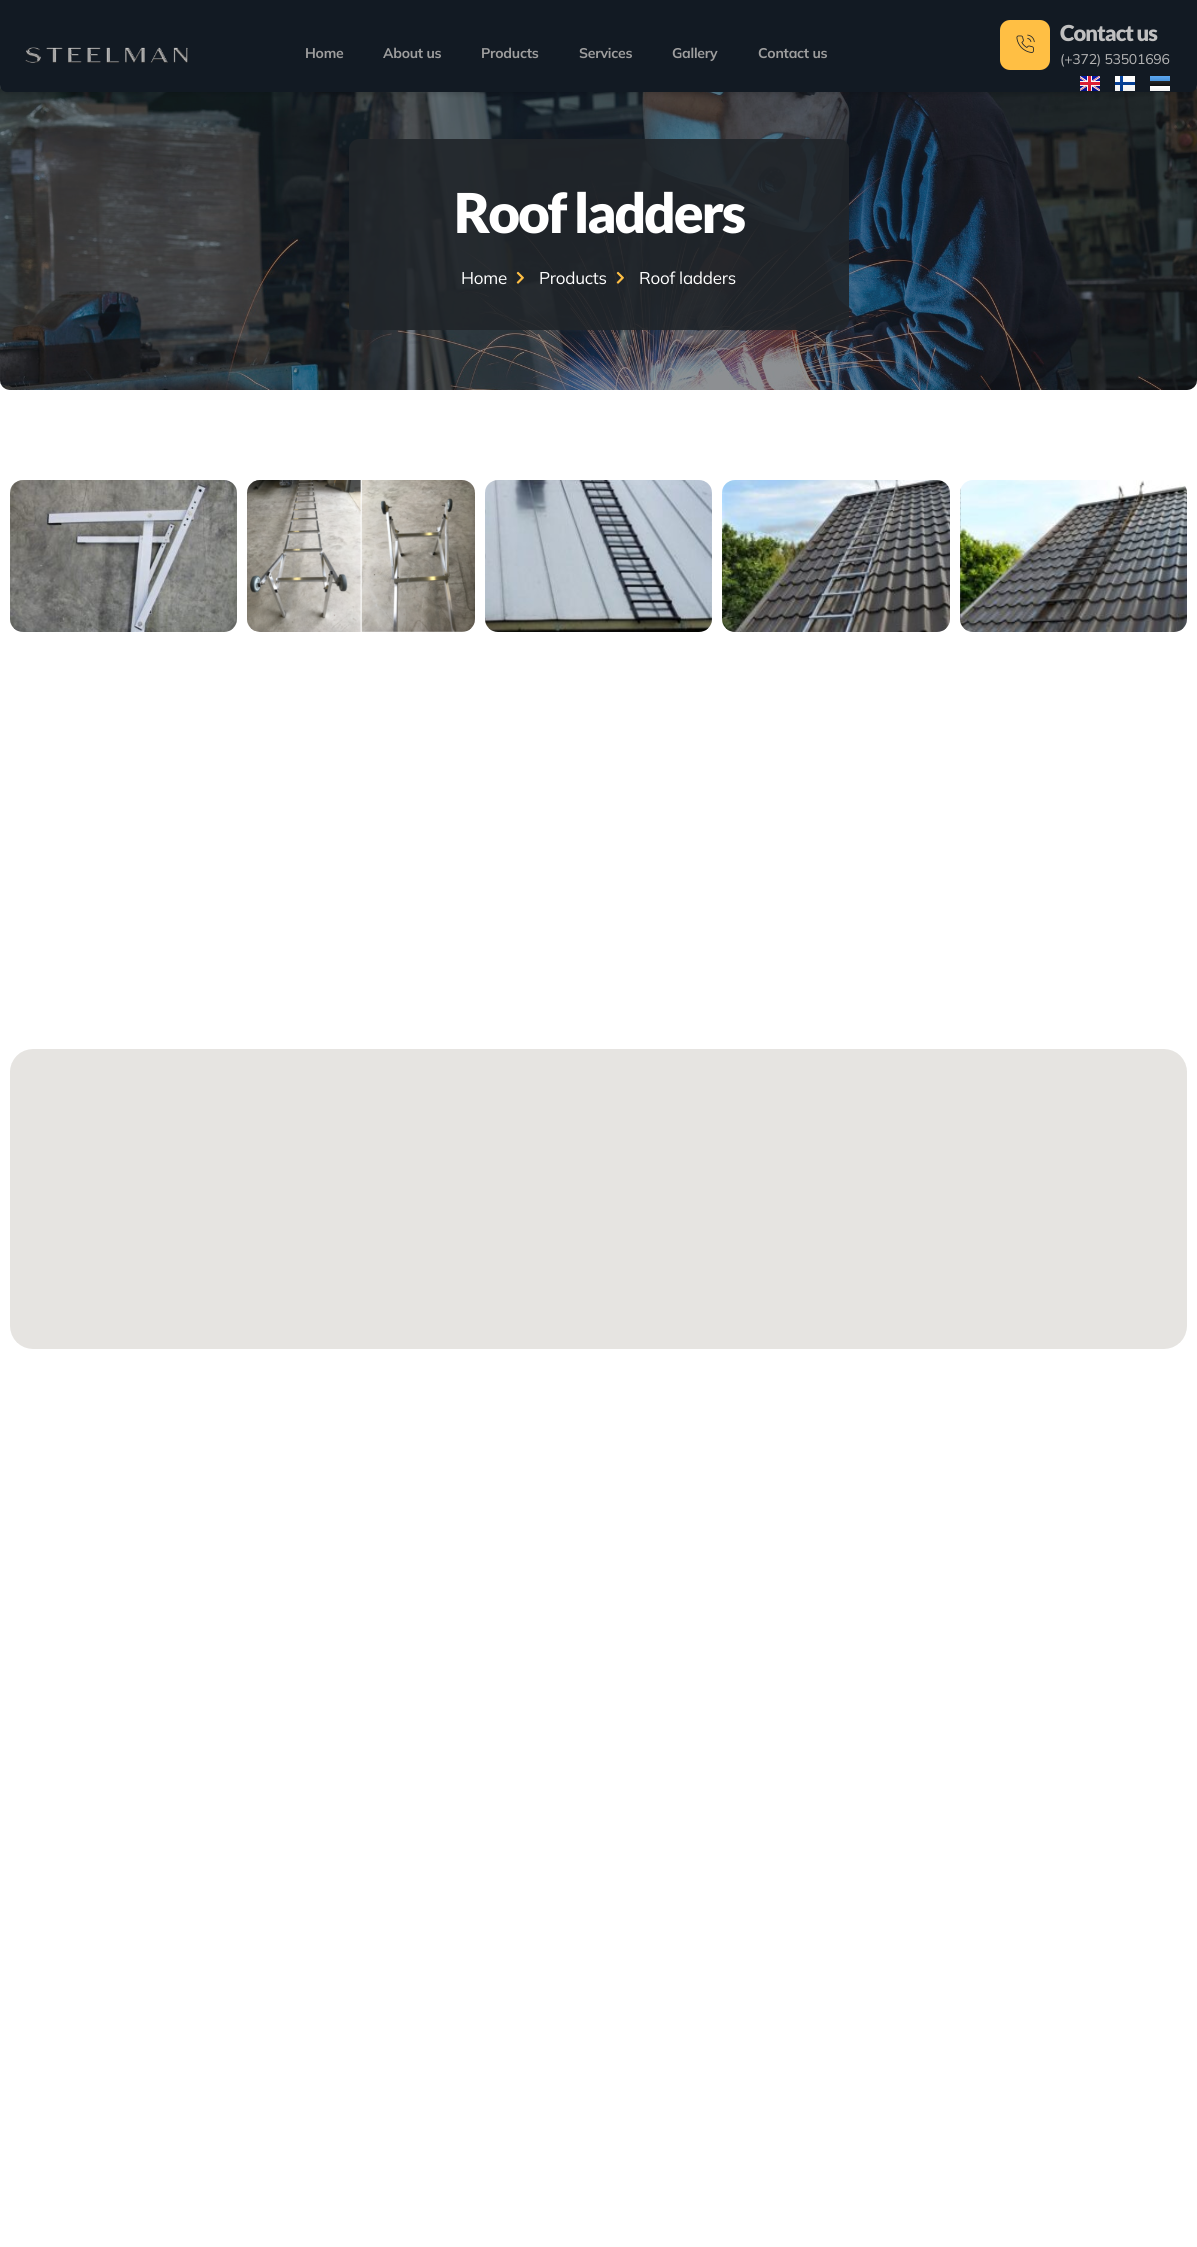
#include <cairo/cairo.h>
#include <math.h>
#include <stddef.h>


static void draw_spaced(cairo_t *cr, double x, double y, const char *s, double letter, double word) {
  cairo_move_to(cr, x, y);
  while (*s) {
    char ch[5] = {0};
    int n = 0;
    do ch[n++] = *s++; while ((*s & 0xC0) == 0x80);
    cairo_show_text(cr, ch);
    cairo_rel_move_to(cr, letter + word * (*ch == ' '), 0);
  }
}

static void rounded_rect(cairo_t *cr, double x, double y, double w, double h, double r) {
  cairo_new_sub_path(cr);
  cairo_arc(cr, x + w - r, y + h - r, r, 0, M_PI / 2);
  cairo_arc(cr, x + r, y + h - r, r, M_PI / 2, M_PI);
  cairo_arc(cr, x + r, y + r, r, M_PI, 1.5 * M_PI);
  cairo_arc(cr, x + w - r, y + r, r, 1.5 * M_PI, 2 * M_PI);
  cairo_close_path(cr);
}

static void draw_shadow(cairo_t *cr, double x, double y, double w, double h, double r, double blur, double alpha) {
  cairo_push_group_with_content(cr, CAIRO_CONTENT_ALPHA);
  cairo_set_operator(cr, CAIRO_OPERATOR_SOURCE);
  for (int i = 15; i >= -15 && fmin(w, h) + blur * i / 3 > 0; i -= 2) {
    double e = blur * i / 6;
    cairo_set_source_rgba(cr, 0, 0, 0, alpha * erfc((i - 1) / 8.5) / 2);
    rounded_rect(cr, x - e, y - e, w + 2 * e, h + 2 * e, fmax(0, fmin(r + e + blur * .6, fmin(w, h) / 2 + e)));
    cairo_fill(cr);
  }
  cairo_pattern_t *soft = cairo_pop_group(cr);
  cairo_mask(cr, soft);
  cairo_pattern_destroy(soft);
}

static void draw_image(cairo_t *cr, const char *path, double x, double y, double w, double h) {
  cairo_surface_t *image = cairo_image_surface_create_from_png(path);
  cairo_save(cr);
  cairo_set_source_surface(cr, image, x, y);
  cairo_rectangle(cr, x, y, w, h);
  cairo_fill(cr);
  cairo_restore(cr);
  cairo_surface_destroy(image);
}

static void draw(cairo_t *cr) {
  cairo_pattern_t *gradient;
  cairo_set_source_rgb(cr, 1, 1, 1);
  cairo_paint(cr);
  draw_image(cr, "images/5.png", 0, 85, 1197, 305);
  cairo_set_source_rgba(cr, 33 / 255.0, 37 / 255.0, 41 / 255.0, 0.5);
  rounded_rect(cr, 0, 79, 1197, 311, 10);
  cairo_fill(cr);
  cairo_set_source_rgb(cr, 0, 0, 0);
  draw_shadow(cr, 0, 2, 1197, 92, 7, 2.5, 0.15);
  cairo_set_source_rgb(cr, 18 / 255.0, 26 / 255.0, 35 / 255.0);
  cairo_new_path(cr);
  cairo_move_to(cr, 0, 0);
  cairo_line_to(cr, 1197, 0);
  cairo_line_to(cr, 1197, 85);
  cairo_curve_to(cr, 1197, 89, 1194, 92, 1190, 92);
  cairo_line_to(cr, 7, 92);
  cairo_curve_to(cr, 3, 92, 0, 89, 0, 85);
  cairo_close_path(cr);
  cairo_fill(cr);
  draw_image(cr, "images/1.png", 25, 47, 163, 16);
  cairo_set_source_rgb(cr, 1, 191 / 255.0, 68 / 255.0);
  rounded_rect(cr, 1000, 20, 50, 50, 10);
  cairo_fill(cr);
  draw_image(cr, "images/2.png", 1016, 34, 19, 19);
  draw_image(cr, "images/3.png", 1080, 76, 20, 15);
  draw_image(cr, "images/4.png", 1115, 76, 20, 15);
  gradient = cairo_pattern_create_linear(1160, 81, 1160, 86);
  cairo_pattern_add_color_stop_rgba(gradient, 0, 38 / 255.0, 38 / 255.0, 38 / 255.0, 1);
  cairo_pattern_add_color_stop_rgba(gradient, 1, 13 / 255.0, 13 / 255.0, 13 / 255.0, 1);
  cairo_set_source(cr, gradient);
  cairo_pattern_destroy(gradient);
  cairo_rectangle(cr, 1150, 81, 20, 5);
  cairo_fill(cr);
  gradient = cairo_pattern_create_linear(1160, 76, 1160, 81);
  cairo_pattern_add_color_stop_rgba(gradient, 0, 93 / 255.0, 168 / 255.0, 241 / 255.0, 1);
  cairo_pattern_add_color_stop_rgba(gradient, 1, 72 / 255.0, 146 / 255.0, 218 / 255.0, 1);
  cairo_set_source(cr, gradient);
  cairo_pattern_destroy(gradient);
  cairo_rectangle(cr, 1150, 76, 20, 5);
  cairo_fill(cr);
  gradient = cairo_pattern_create_linear(1160, 86, 1160, 91);
  cairo_pattern_add_color_stop_rgba(gradient, 0, 1, 1, 1, 1);
  cairo_pattern_add_color_stop_rgba(gradient, 1, 240 / 255.0, 240 / 255.0, 240 / 255.0, 1);
  cairo_set_source(cr, gradient);
  cairo_pattern_destroy(gradient);
  cairo_rectangle(cr, 1150, 86, 20, 5);
  cairo_fill(cr);
  cairo_set_source_rgba(cr, 33 / 255.0, 37 / 255.0, 41 / 255.0, 0.9);
  rounded_rect(cr, 349, 139, 500, 191, 10);
  cairo_fill(cr);
  draw_image(cr, "images/6.png", 516, 271, 8, 13);
  draw_image(cr, "images/7.png", 616, 271, 8, 13);
  draw_image(cr, "images/8.png", 10, 480, 227, 152);
  draw_image(cr, "images/9.png", 247, 480, 228, 152);
  draw_image(cr, "images/10.png", 485, 480, 227, 152);
  draw_image(cr, "images/11.png", 722, 480, 228, 152);
  draw_image(cr, "images/12.png", 960, 480, 227, 152);
  draw_image(cr, "images/13.png", 10, 1049, 1177, 300);
  cairo_select_font_face(cr, "Mulish", CAIRO_FONT_SLANT_NORMAL, CAIRO_FONT_WEIGHT_BOLD);
  cairo_set_font_size(cr, 14);
  cairo_set_source_rgb(cr, 158 / 255.0, 158 / 255.0, 158 / 255.0);
  draw_spaced(cr, 305, 58, "Home", -0.25, 0);
  draw_spaced(cr, 383, 58, "About us", -0.25, 0);
  draw_spaced(cr, 481, 58, "Products", -0.25, 0);
  draw_spaced(cr, 579, 58, "Services", -0.25, 0);
  draw_spaced(cr, 672, 58, "Gallery", -0.25, 0);
  draw_spaced(cr, 758, 58, "Contact us", -0.25, 0);
  cairo_select_font_face(cr, "Lato Black", CAIRO_FONT_SLANT_NORMAL, CAIRO_FONT_WEIGHT_NORMAL);
  cairo_set_font_size(cr, 22);
  cairo_set_source_rgb(cr, 192 / 255.0, 192 / 255.0, 192 / 255.0);
  draw_spaced(cr, 1060, 41, "Contact us", -1, 0);
  cairo_select_font_face(cr, "Mulish", CAIRO_FONT_SLANT_NORMAL, CAIRO_FONT_WEIGHT_NORMAL);
  cairo_set_font_size(cr, 14);
  cairo_set_source_rgb(cr, 180 / 255.0, 180 / 255.0, 180 / 255.0);
  draw_spaced(cr, 1060, 64, "(+372) 53501696", -0.25, 0);
  cairo_select_font_face(cr, "Lato Black", CAIRO_FONT_SLANT_NORMAL, CAIRO_FONT_WEIGHT_NORMAL);
  cairo_set_font_size(cr, 55);
  cairo_set_source_rgb(cr, 1, 1, 1);
  draw_spaced(cr, 454, 233, "Roof ladders", -2.25, 0);
  cairo_select_font_face(cr, "Mulish", CAIRO_FONT_SLANT_NORMAL, CAIRO_FONT_WEIGHT_NORMAL);
  cairo_set_font_size(cr, 17);
  draw_spaced(cr, 461, 284, "Home", -0.25, 0);
  draw_spaced(cr, 539, 284, "Products", -0.25, 0);
  draw_spaced(cr, 639, 284, "Roof ladders", -0.25, 0);
}

int main(void) {
  cairo_surface_t *surface = cairo_image_surface_create(CAIRO_FORMAT_RGB24, 1197, 2247);
  cairo_t *cr = cairo_create(surface);
  cairo_font_options_t *options = cairo_font_options_create();
  cairo_font_options_set_hint_metrics(options, CAIRO_HINT_METRICS_OFF);
  cairo_font_options_set_hint_style(options, CAIRO_HINT_STYLE_NONE);
  cairo_set_font_options(cr, options);
  cairo_set_miter_limit(cr, 4);
  draw(cr);
  cairo_surface_write_to_png(surface, "out.png");
  cairo_font_options_destroy(options);
  cairo_destroy(cr);
  cairo_surface_destroy(surface);
  return 0;
}
